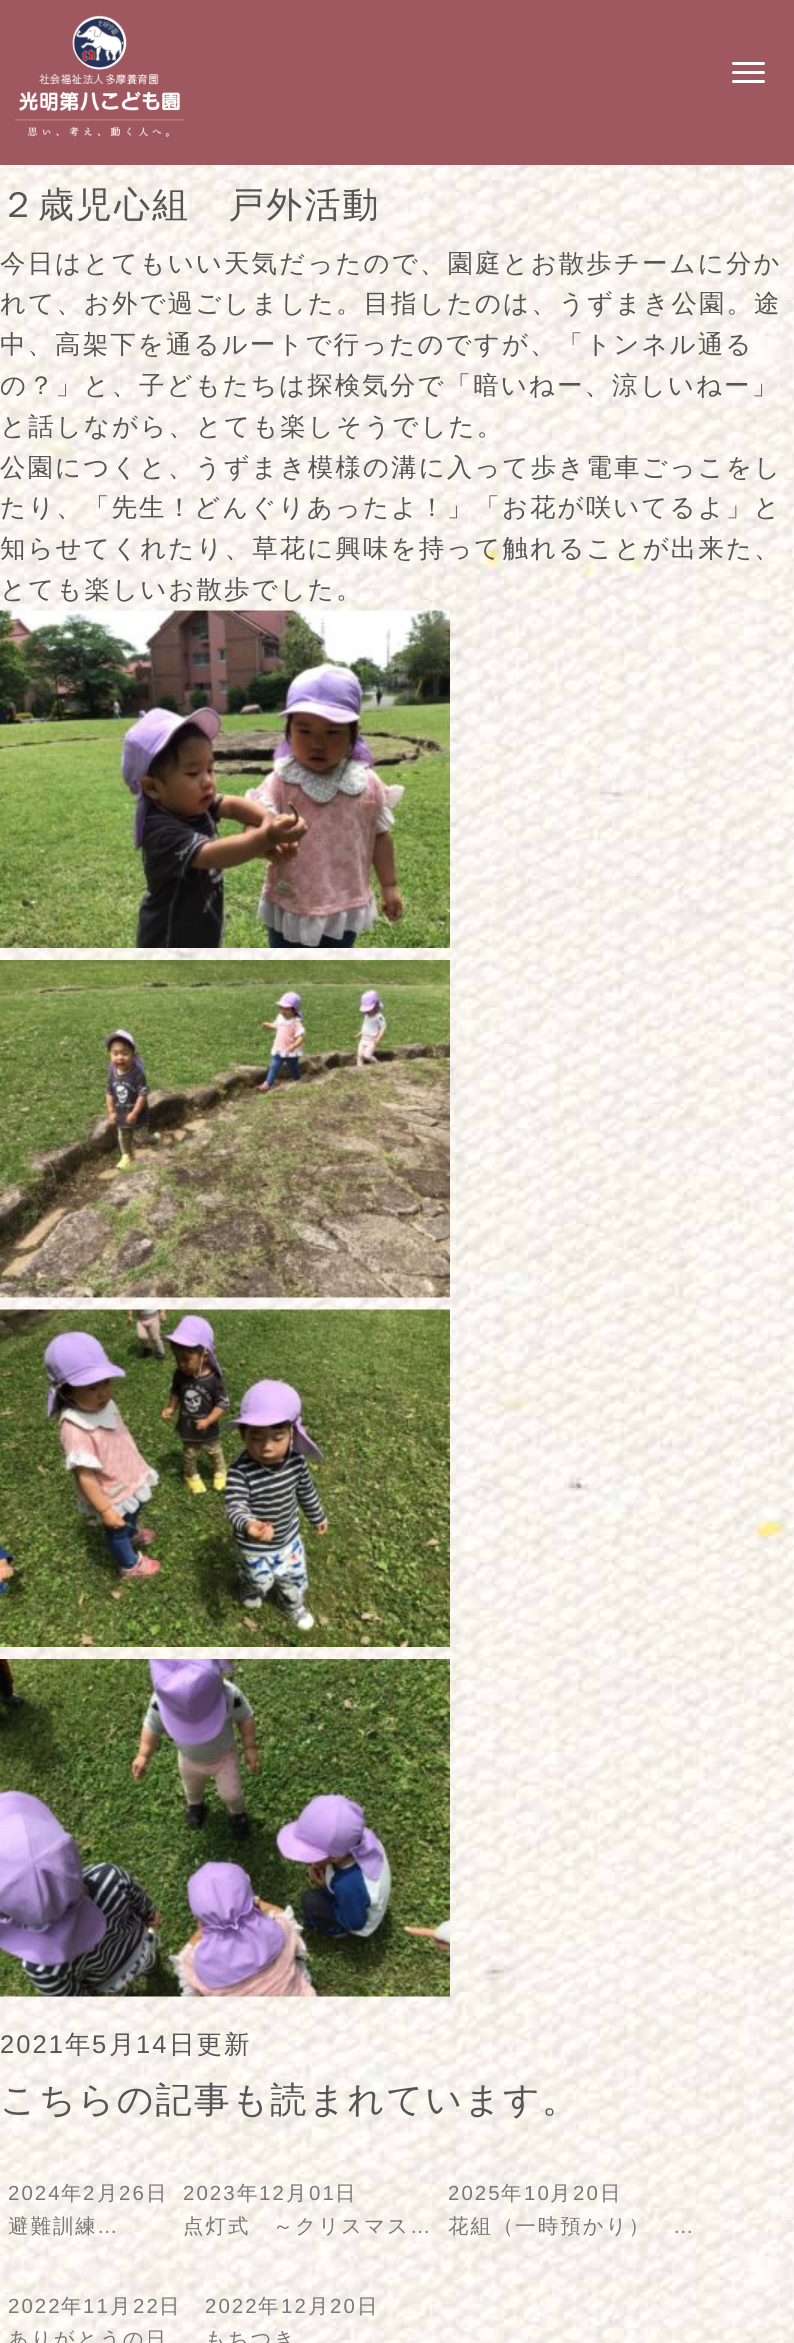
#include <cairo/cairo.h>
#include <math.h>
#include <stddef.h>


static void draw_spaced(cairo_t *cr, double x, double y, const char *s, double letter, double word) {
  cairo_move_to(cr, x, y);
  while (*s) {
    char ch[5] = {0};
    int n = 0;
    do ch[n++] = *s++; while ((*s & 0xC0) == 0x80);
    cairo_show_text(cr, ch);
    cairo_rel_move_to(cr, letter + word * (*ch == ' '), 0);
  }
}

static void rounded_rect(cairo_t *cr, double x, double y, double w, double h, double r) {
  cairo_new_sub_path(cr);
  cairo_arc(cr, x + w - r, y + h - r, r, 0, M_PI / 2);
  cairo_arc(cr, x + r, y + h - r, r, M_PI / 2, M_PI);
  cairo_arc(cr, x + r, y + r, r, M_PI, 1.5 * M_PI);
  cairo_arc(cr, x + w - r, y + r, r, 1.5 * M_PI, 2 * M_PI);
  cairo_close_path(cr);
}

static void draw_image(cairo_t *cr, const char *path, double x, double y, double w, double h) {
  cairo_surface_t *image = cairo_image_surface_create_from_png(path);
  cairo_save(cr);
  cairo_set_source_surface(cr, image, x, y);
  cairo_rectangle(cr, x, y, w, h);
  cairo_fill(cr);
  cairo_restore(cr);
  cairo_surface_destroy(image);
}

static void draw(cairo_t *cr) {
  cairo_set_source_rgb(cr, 1, 1, 1);
  cairo_paint(cr);
  draw_image(cr, "images/1.png", 0, 165, 794, 2178);
  cairo_set_source_rgb(cr, 159 / 255.0, 88 / 255.0, 96 / 255.0);
  cairo_rectangle(cr, 0, 0, 794, 165);
  cairo_fill(cr);
  draw_image(cr, "images/2.png", 15, 15, 169, 122);
  cairo_set_source_rgb(cr, 1, 1, 1);
  rounded_rect(cr, 732, 62, 33, 3, 1.5);
  cairo_fill(cr);
  rounded_rect(cr, 732, 71, 33, 3, 1.5);
  cairo_fill(cr);
  rounded_rect(cr, 732, 80, 33, 3, 1.5);
  cairo_fill(cr);
  draw_image(cr, "images/3.png", 0, 610, 450, 338);
  draw_image(cr, "images/4.png", 0, 960, 450, 338);
  draw_image(cr, "images/5.png", 0, 1309, 450, 338);
  draw_image(cr, "images/6.png", 0, 1659, 450, 338);
  cairo_select_font_face(cr, "WenQuanYi Zen Hei Medium", CAIRO_FONT_SLANT_NORMAL, CAIRO_FONT_WEIGHT_NORMAL);
  cairo_set_font_size(cr, 36);
  cairo_set_source_rgb(cr, 85 / 255.0, 85 / 255.0, 85 / 255.0);
  draw_spaced(cr, 0, 217, "２歳児心組　戸外活動", 2.05, 0);
  cairo_set_font_size(cr, 25.5);
  draw_spaced(cr, 0, 272, "今日はとてもいい天気だったので、園庭とお散歩チームに分か", 2.05, 0);
  draw_spaced(cr, 0, 312, "れて、お外で過ごしました。目指したのは、うずまき公園。途", 2.05, 0);
  draw_spaced(cr, 0, 353, "中、高架下を通るルートで行ったのですが、「トンネル通る", 2.05, 0);
  draw_spaced(cr, 0, 394, "の？」と、子どもたちは探検気分で「暗いねー、涼しいねー」", 2.05, 0);
  draw_spaced(cr, 0, 435, "と話しながら、とても楽しそうでした。", 2.05, 0);
  draw_spaced(cr, 0, 476, "公園につくと、うずまき模様の溝に入って歩き電車ごっこをし", 2.05, 0);
  draw_spaced(cr, 0, 516, "たり、「先生！どんぐりあったよ！」「お花が咲いてるよ」と", 2.05, 0);
  draw_spaced(cr, 0, 557, "知らせてくれたり、草花に興味を持って触れることが出来た、", 2.05, 0);
  draw_spaced(cr, 0, 598, "とても楽しいお散歩でした。", 2.05, 0);
  cairo_select_font_face(cr, "Liberation Sans", CAIRO_FONT_SLANT_NORMAL, CAIRO_FONT_WEIGHT_NORMAL);
  draw_spaced(cr, 0, 2053, "2021", 2.05, 0);
  cairo_select_font_face(cr, "WenQuanYi Zen Hei Medium", CAIRO_FONT_SLANT_NORMAL, CAIRO_FONT_WEIGHT_NORMAL);
  draw_spaced(cr, 65, 2053, "年", 2.05, 0);
  cairo_select_font_face(cr, "Liberation Sans", CAIRO_FONT_SLANT_NORMAL, CAIRO_FONT_WEIGHT_NORMAL);
  draw_spaced(cr, 92, 2053, "5", 2.05, 0);
  cairo_select_font_face(cr, "WenQuanYi Zen Hei Medium", CAIRO_FONT_SLANT_NORMAL, CAIRO_FONT_WEIGHT_NORMAL);
  draw_spaced(cr, 109, 2053, "月", 2.05, 0);
  cairo_select_font_face(cr, "Liberation Sans", CAIRO_FONT_SLANT_NORMAL, CAIRO_FONT_WEIGHT_NORMAL);
  draw_spaced(cr, 136, 2053, "14", 2.05, 0);
  cairo_select_font_face(cr, "WenQuanYi Zen Hei Medium", CAIRO_FONT_SLANT_NORMAL, CAIRO_FONT_WEIGHT_NORMAL);
  draw_spaced(cr, 169, 2053, "日更新", 2.05, 0);
  cairo_set_font_size(cr, 36);
  draw_spaced(cr, 0, 2112, "こちらの記事も読まれています。", 2.05, 0);
  cairo_select_font_face(cr, "Liberation Sans", CAIRO_FONT_SLANT_NORMAL, CAIRO_FONT_WEIGHT_NORMAL);
  cairo_set_font_size(cr, 20.4);
  cairo_set_source_rgb(cr, 119 / 255.0, 119 / 255.0, 119 / 255.0);
  draw_spaced(cr, 8, 2200, "2024", 2.05, 0);
  cairo_select_font_face(cr, "WenQuanYi Zen Hei Medium", CAIRO_FONT_SLANT_NORMAL, CAIRO_FONT_WEIGHT_NORMAL);
  draw_spaced(cr, 61, 2200, "年", 2.05, 0);
  cairo_select_font_face(cr, "Liberation Sans", CAIRO_FONT_SLANT_NORMAL, CAIRO_FONT_WEIGHT_NORMAL);
  draw_spaced(cr, 83, 2200, "2", 2.05, 0);
  cairo_select_font_face(cr, "WenQuanYi Zen Hei Medium", CAIRO_FONT_SLANT_NORMAL, CAIRO_FONT_WEIGHT_NORMAL);
  draw_spaced(cr, 97, 2200, "月", 2.05, 0);
  cairo_select_font_face(cr, "Liberation Sans", CAIRO_FONT_SLANT_NORMAL, CAIRO_FONT_WEIGHT_NORMAL);
  draw_spaced(cr, 119, 2200, "26", 2.05, 0);
  cairo_select_font_face(cr, "WenQuanYi Zen Hei Medium", CAIRO_FONT_SLANT_NORMAL, CAIRO_FONT_WEIGHT_NORMAL);
  draw_spaced(cr, 146, 2200, "日", 2.05, 0);
  draw_spaced(cr, 8, 2233, "避難訓練", 2.05, 0);
  cairo_select_font_face(cr, "Liberation Sans", CAIRO_FONT_SLANT_NORMAL, CAIRO_FONT_WEIGHT_NORMAL);
  draw_spaced(cr, 97, 2233, "…", 2.05, 0);
  draw_spaced(cr, 183, 2200, "2023", 2.05, 0);
  cairo_select_font_face(cr, "WenQuanYi Zen Hei Medium", CAIRO_FONT_SLANT_NORMAL, CAIRO_FONT_WEIGHT_NORMAL);
  draw_spaced(cr, 237, 2200, "年", 2.05, 0);
  cairo_select_font_face(cr, "Liberation Sans", CAIRO_FONT_SLANT_NORMAL, CAIRO_FONT_WEIGHT_NORMAL);
  draw_spaced(cr, 259, 2200, "12", 2.05, 0);
  cairo_select_font_face(cr, "WenQuanYi Zen Hei Medium", CAIRO_FONT_SLANT_NORMAL, CAIRO_FONT_WEIGHT_NORMAL);
  draw_spaced(cr, 286, 2200, "月", 2.05, 0);
  cairo_select_font_face(cr, "Liberation Sans", CAIRO_FONT_SLANT_NORMAL, CAIRO_FONT_WEIGHT_NORMAL);
  draw_spaced(cr, 309, 2200, "01", 2.05, 0);
  cairo_select_font_face(cr, "WenQuanYi Zen Hei Medium", CAIRO_FONT_SLANT_NORMAL, CAIRO_FONT_WEIGHT_NORMAL);
  draw_spaced(cr, 335, 2200, "日", 2.05, 0);
  draw_spaced(cr, 183, 2233, "点灯式　～クリスマス", 2.05, 0);
  cairo_select_font_face(cr, "Liberation Sans", CAIRO_FONT_SLANT_NORMAL, CAIRO_FONT_WEIGHT_NORMAL);
  draw_spaced(cr, 410, 2233, "…", 2.05, 0);
  draw_spaced(cr, 448, 2200, "2025", 2.05, 0);
  cairo_select_font_face(cr, "WenQuanYi Zen Hei Medium", CAIRO_FONT_SLANT_NORMAL, CAIRO_FONT_WEIGHT_NORMAL);
  draw_spaced(cr, 501, 2200, "年", 2.05, 0);
  cairo_select_font_face(cr, "Liberation Sans", CAIRO_FONT_SLANT_NORMAL, CAIRO_FONT_WEIGHT_NORMAL);
  draw_spaced(cr, 524, 2200, "10", 2.05, 0);
  cairo_select_font_face(cr, "WenQuanYi Zen Hei Medium", CAIRO_FONT_SLANT_NORMAL, CAIRO_FONT_WEIGHT_NORMAL);
  draw_spaced(cr, 550, 2200, "月", 2.05, 0);
  cairo_select_font_face(cr, "Liberation Sans", CAIRO_FONT_SLANT_NORMAL, CAIRO_FONT_WEIGHT_NORMAL);
  draw_spaced(cr, 573, 2200, "20", 2.05, 0);
  cairo_select_font_face(cr, "WenQuanYi Zen Hei Medium", CAIRO_FONT_SLANT_NORMAL, CAIRO_FONT_WEIGHT_NORMAL);
  draw_spaced(cr, 600, 2200, "日", 2.05, 0);
  draw_spaced(cr, 448, 2233, "花組（一時預かり）", 2.05, 0);
  cairo_select_font_face(cr, "Liberation Sans", CAIRO_FONT_SLANT_NORMAL, CAIRO_FONT_WEIGHT_NORMAL);
  draw_spaced(cr, 673, 2233, "…", 2.05, 0);
  draw_spaced(cr, 8, 2313, "2022", 2.05, 0);
  cairo_select_font_face(cr, "WenQuanYi Zen Hei Medium", CAIRO_FONT_SLANT_NORMAL, CAIRO_FONT_WEIGHT_NORMAL);
  draw_spaced(cr, 61, 2313, "年", 2.05, 0);
  cairo_select_font_face(cr, "Liberation Sans", CAIRO_FONT_SLANT_NORMAL, CAIRO_FONT_WEIGHT_NORMAL);
  draw_spaced(cr, 83, 2313, "11", 2.05, 0);
  cairo_select_font_face(cr, "WenQuanYi Zen Hei Medium", CAIRO_FONT_SLANT_NORMAL, CAIRO_FONT_WEIGHT_NORMAL);
  draw_spaced(cr, 110, 2313, "月", 2.05, 0);
  cairo_select_font_face(cr, "Liberation Sans", CAIRO_FONT_SLANT_NORMAL, CAIRO_FONT_WEIGHT_NORMAL);
  draw_spaced(cr, 133, 2313, "22", 2.05, 0);
  cairo_select_font_face(cr, "WenQuanYi Zen Hei Medium", CAIRO_FONT_SLANT_NORMAL, CAIRO_FONT_WEIGHT_NORMAL);
  draw_spaced(cr, 159, 2313, "日", 2.05, 0);
  draw_spaced(cr, 8, 2346, "ありがとうの日", 2.05, 0);
  cairo_select_font_face(cr, "Liberation Sans", CAIRO_FONT_SLANT_NORMAL, CAIRO_FONT_WEIGHT_NORMAL);
  draw_spaced(cr, 205, 2313, "2022", 2.05, 0);
  cairo_select_font_face(cr, "WenQuanYi Zen Hei Medium", CAIRO_FONT_SLANT_NORMAL, CAIRO_FONT_WEIGHT_NORMAL);
  draw_spaced(cr, 258, 2313, "年", 2.05, 0);
  cairo_select_font_face(cr, "Liberation Sans", CAIRO_FONT_SLANT_NORMAL, CAIRO_FONT_WEIGHT_NORMAL);
  draw_spaced(cr, 281, 2313, "12", 2.05, 0);
  cairo_select_font_face(cr, "WenQuanYi Zen Hei Medium", CAIRO_FONT_SLANT_NORMAL, CAIRO_FONT_WEIGHT_NORMAL);
  draw_spaced(cr, 308, 2313, "月", 2.05, 0);
  cairo_select_font_face(cr, "Liberation Sans", CAIRO_FONT_SLANT_NORMAL, CAIRO_FONT_WEIGHT_NORMAL);
  draw_spaced(cr, 330, 2313, "20", 2.05, 0);
  cairo_select_font_face(cr, "WenQuanYi Zen Hei Medium", CAIRO_FONT_SLANT_NORMAL, CAIRO_FONT_WEIGHT_NORMAL);
  draw_spaced(cr, 357, 2313, "日", 2.05, 0);
  draw_spaced(cr, 205, 2346, "もちつき", 2.05, 0);
}

int main(void) {
  cairo_surface_t *surface = cairo_image_surface_create(CAIRO_FORMAT_RGB24, 794, 2343);
  cairo_t *cr = cairo_create(surface);
  cairo_font_options_t *options = cairo_font_options_create();
  cairo_font_options_set_hint_metrics(options, CAIRO_HINT_METRICS_OFF);
  cairo_font_options_set_hint_style(options, CAIRO_HINT_STYLE_NONE);
  cairo_set_font_options(cr, options);
  cairo_set_miter_limit(cr, 4);
  draw(cr);
  cairo_surface_write_to_png(surface, "out.png");
  cairo_font_options_destroy(options);
  cairo_destroy(cr);
  cairo_surface_destroy(surface);
  return 0;
}
